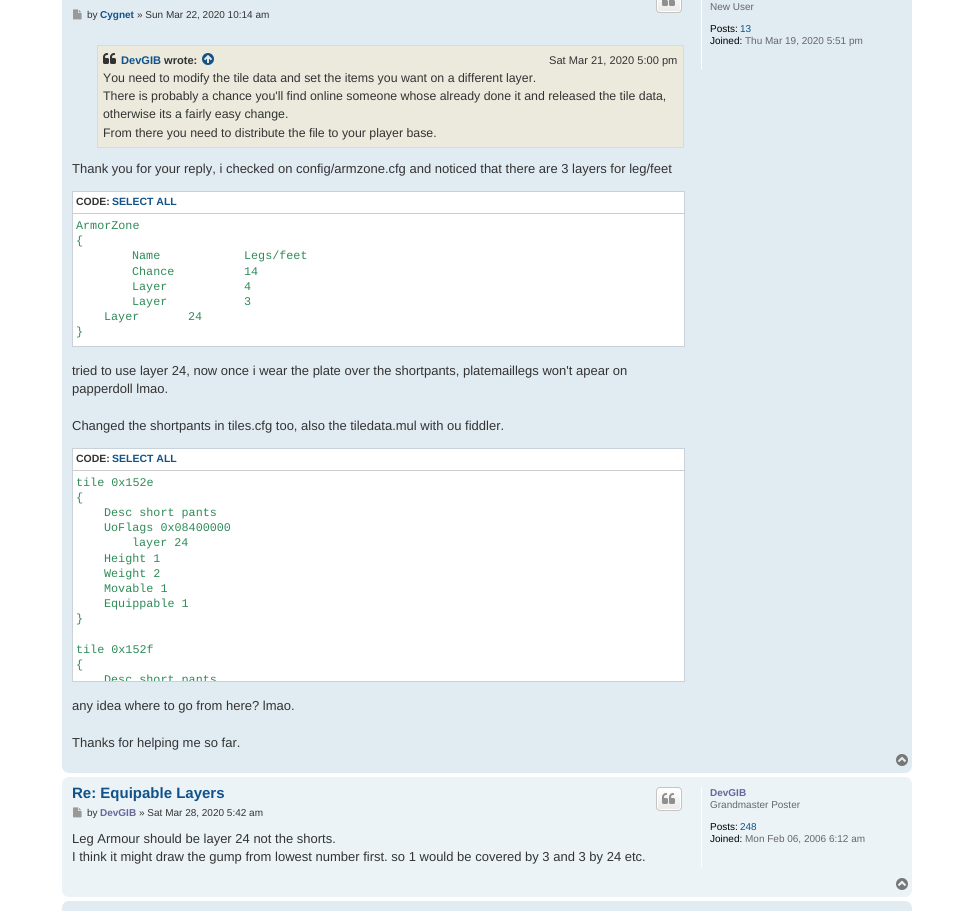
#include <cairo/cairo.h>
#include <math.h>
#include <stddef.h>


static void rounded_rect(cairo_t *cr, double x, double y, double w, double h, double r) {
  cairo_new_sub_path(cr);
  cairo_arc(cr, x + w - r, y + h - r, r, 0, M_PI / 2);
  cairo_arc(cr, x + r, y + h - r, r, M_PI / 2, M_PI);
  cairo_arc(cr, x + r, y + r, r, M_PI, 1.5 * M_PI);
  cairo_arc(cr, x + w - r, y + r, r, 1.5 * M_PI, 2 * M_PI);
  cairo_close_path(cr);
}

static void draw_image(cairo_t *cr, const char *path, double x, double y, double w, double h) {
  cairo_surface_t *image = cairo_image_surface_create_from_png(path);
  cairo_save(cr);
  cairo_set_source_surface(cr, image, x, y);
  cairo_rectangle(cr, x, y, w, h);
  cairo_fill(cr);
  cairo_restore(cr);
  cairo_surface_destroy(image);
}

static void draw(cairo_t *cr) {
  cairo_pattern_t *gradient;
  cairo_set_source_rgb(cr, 1, 1, 1);
  cairo_paint(cr);
  cairo_set_source_rgb(cr, 225 / 255.0, 235 / 255.0, 242 / 255.0);
  rounded_rect(cr, 62, -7, 850, 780, 7);
  cairo_fill(cr);
  cairo_save(cr);
  rounded_rect(cr, 656, -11, 26, 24, 4);
  cairo_clip(cr);
  gradient = cairo_pattern_create_linear(669, -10, 669, 12);
  cairo_pattern_add_color_stop_rgba(gradient, 0, 1, 1, 1, 1);
  cairo_pattern_add_color_stop_rgba(gradient, 1, 233 / 255.0, 233 / 255.0, 233 / 255.0, 1);
  cairo_set_source(cr, gradient);
  cairo_pattern_destroy(gradient);
  cairo_rectangle(cr, 656, 0, 26, 12);
  cairo_fill(cr);
  cairo_restore(cr);
  rounded_rect(cr, 657.5, -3.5, 23, 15, 2.5);
  cairo_set_source_rgb(cr, 1, 1, 1);
  cairo_set_line_width(cr, 1);
  cairo_stroke(cr);
  rounded_rect(cr, 656.5, -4.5, 25, 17, 3.5);
  cairo_set_source_rgb(cr, 199 / 255.0, 195 / 255.0, 191 / 255.0);
  cairo_stroke(cr);
  draw_image(cr, "images/1.png", 662, 0, 13, 6);
  draw_image(cr, "images/2.png", 73, 9, 9, 11);
  cairo_set_source_rgb(cr, 235 / 255.0, 234 / 255.0, 221 / 255.0);
  cairo_rectangle(cr, 97.5, 45.5, 586, 102);
  cairo_fill_preserve(cr);
  cairo_set_source_rgb(cr, 219 / 255.0, 219 / 255.0, 206 / 255.0);
  cairo_stroke(cr);
  draw_image(cr, "images/3.png", 103, 53, 13, 11);
  draw_image(cr, "images/4.png", 202, 53, 12, 12);
  cairo_set_source_rgb(cr, 1, 1, 1);
  cairo_rectangle(cr, 72.5, 191.5, 612, 155);
  cairo_fill_preserve(cr);
  cairo_set_source_rgb(cr, 201 / 255.0, 210 / 255.0, 216 / 255.0);
  cairo_stroke(cr);
  cairo_set_source_rgb(cr, 204 / 255.0, 204 / 255.0, 204 / 255.0);
  cairo_rectangle(cr, 73, 213, 611, 1);
  cairo_fill(cr);
  cairo_set_source_rgb(cr, 1, 1, 1);
  cairo_rectangle(cr, 72.5, 448.5, 612, 233);
  cairo_fill_preserve(cr);
  cairo_set_source_rgb(cr, 201 / 255.0, 210 / 255.0, 216 / 255.0);
  cairo_stroke(cr);
  cairo_set_source_rgb(cr, 204 / 255.0, 204 / 255.0, 204 / 255.0);
  cairo_rectangle(cr, 73, 470, 611, 1);
  cairo_fill(cr);
  cairo_set_source_rgb(cr, 1, 1, 1);
  cairo_rectangle(cr, 701, 0, 1, 69);
  cairo_fill(cr);
  draw_image(cr, "images/5.png", 896, 754, 12, 12);
  cairo_set_source_rgb(cr, 236 / 255.0, 243 / 255.0, 247 / 255.0);
  rounded_rect(cr, 62, 777, 850, 120, 7);
  cairo_fill(cr);
  cairo_save(cr);
  rounded_rect(cr, 656, 787, 26, 24, 4);
  cairo_clip(cr);
  gradient = cairo_pattern_create_linear(669, 788, 669, 810);
  cairo_pattern_add_color_stop_rgba(gradient, 0, 1, 1, 1, 1);
  cairo_pattern_add_color_stop_rgba(gradient, 1, 233 / 255.0, 233 / 255.0, 233 / 255.0, 1);
  cairo_set_source(cr, gradient);
  cairo_pattern_destroy(gradient);
  cairo_rectangle(cr, 656, 788, 26, 22);
  cairo_fill(cr);
  cairo_restore(cr);
  rounded_rect(cr, 657.5, 788.5, 23, 21, 2.5);
  cairo_set_source_rgb(cr, 1, 1, 1);
  cairo_stroke(cr);
  rounded_rect(cr, 656.5, 787.5, 25, 23, 3.5);
  cairo_set_source_rgb(cr, 199 / 255.0, 195 / 255.0, 191 / 255.0);
  cairo_stroke(cr);
  draw_image(cr, "images/6.png", 662, 793, 13, 11);
  draw_image(cr, "images/7.png", 73, 807, 9, 11);
  cairo_set_source_rgb(cr, 1, 1, 1);
  cairo_rectangle(cr, 701, 787, 1, 80);
  cairo_fill(cr);
  draw_image(cr, "images/8.png", 896, 878, 12, 12);
  cairo_set_source_rgb(cr, 225 / 255.0, 235 / 255.0, 242 / 255.0);
  rounded_rect(cr, 62, 901, 850, 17, 7);
  cairo_fill(cr);
  cairo_select_font_face(cr, "Liberation Sans", CAIRO_FONT_SLANT_NORMAL, CAIRO_FONT_WEIGHT_NORMAL);
  cairo_set_font_size(cr, 10);
  cairo_set_source_rgb(cr, 51 / 255.0, 51 / 255.0, 51 / 255.0);
  cairo_move_to(cr, 87, 18);
  cairo_show_text(cr, "by");
  cairo_select_font_face(cr, "Liberation Sans", CAIRO_FONT_SLANT_NORMAL, CAIRO_FONT_WEIGHT_BOLD);
  cairo_set_source_rgb(cr, 16 / 255.0, 82 / 255.0, 137 / 255.0);
  cairo_move_to(cr, 100, 18);
  cairo_show_text(cr, "Cygnet");
  cairo_select_font_face(cr, "Liberation Sans", CAIRO_FONT_SLANT_NORMAL, CAIRO_FONT_WEIGHT_NORMAL);
  cairo_set_source_rgb(cr, 51 / 255.0, 51 / 255.0, 51 / 255.0);
  cairo_move_to(cr, 137, 18);
  cairo_show_text(cr, "» Sun Mar 22, 2020 10:14 am");
  cairo_select_font_face(cr, "Liberation Sans", CAIRO_FONT_SLANT_NORMAL, CAIRO_FONT_WEIGHT_BOLD);
  cairo_set_font_size(cr, 11.1);
  cairo_set_source_rgb(cr, 16 / 255.0, 82 / 255.0, 137 / 255.0);
  cairo_move_to(cr, 121, 64);
  cairo_show_text(cr, "DevGIB");
  cairo_set_source_rgb(cr, 51 / 255.0, 51 / 255.0, 51 / 255.0);
  cairo_move_to(cr, 164, 64);
  cairo_show_text(cr, "wrote:");
  cairo_select_font_face(cr, "Liberation Sans", CAIRO_FONT_SLANT_NORMAL, CAIRO_FONT_WEIGHT_NORMAL);
  cairo_move_to(cr, 549, 64);
  cairo_show_text(cr, "Sat Mar 21, 2020 5:00 pm");
  cairo_set_font_size(cr, 12.35);
  cairo_move_to(cr, 103, 82);
  cairo_show_text(cr, "You need to modify the tile data and set the items you want on a different layer.");
  cairo_move_to(cr, 103, 100);
  cairo_show_text(cr, "There is probably a chance you'll find online someone whose already done it and released the tile data,");
  cairo_move_to(cr, 103, 118);
  cairo_show_text(cr, "otherwise its a fairly easy change.");
  cairo_move_to(cr, 103, 137);
  cairo_show_text(cr, "From there you need to distribute the file to your player base.");
  cairo_set_font_size(cr, 13);
  cairo_move_to(cr, 72, 173);
  cairo_show_text(cr, "Thank you for your reply, i checked on config/armzone.cfg and noticed that there are 3 layers for leg/feet");
  cairo_select_font_face(cr, "Liberation Sans", CAIRO_FONT_SLANT_NORMAL, CAIRO_FONT_WEIGHT_BOLD);
  cairo_set_font_size(cr, 10.5);
  cairo_move_to(cr, 76, 205);
  cairo_show_text(cr, "CODE:");
  cairo_set_source_rgb(cr, 16 / 255.0, 82 / 255.0, 137 / 255.0);
  cairo_move_to(cr, 112, 205);
  cairo_show_text(cr, "SELECT ALL");
  cairo_select_font_face(cr, "Liberation Mono", CAIRO_FONT_SLANT_NORMAL, CAIRO_FONT_WEIGHT_NORMAL);
  cairo_set_font_size(cr, 11.75);
  cairo_set_source_rgb(cr, 46 / 255.0, 139 / 255.0, 87 / 255.0);
  cairo_move_to(cr, 76, 229);
  cairo_show_text(cr, "ArmorZone");
  cairo_move_to(cr, 76, 244);
  cairo_show_text(cr, "{");
  cairo_move_to(cr, 132, 259);
  cairo_show_text(cr, "Name");
  cairo_move_to(cr, 244, 259);
  cairo_show_text(cr, "Legs/feet");
  cairo_move_to(cr, 132, 275);
  cairo_show_text(cr, "Chance");
  cairo_move_to(cr, 244, 275);
  cairo_show_text(cr, "14");
  cairo_move_to(cr, 132, 290);
  cairo_show_text(cr, "Layer");
  cairo_move_to(cr, 244, 290);
  cairo_show_text(cr, "4");
  cairo_move_to(cr, 132, 305);
  cairo_show_text(cr, "Layer");
  cairo_move_to(cr, 244, 305);
  cairo_show_text(cr, "3");
  cairo_move_to(cr, 104, 320);
  cairo_show_text(cr, "Layer");
  cairo_move_to(cr, 188, 320);
  cairo_show_text(cr, "24");
  cairo_move_to(cr, 76, 335);
  cairo_show_text(cr, "}");
  cairo_select_font_face(cr, "Liberation Sans", CAIRO_FONT_SLANT_NORMAL, CAIRO_FONT_WEIGHT_NORMAL);
  cairo_set_font_size(cr, 13);
  cairo_set_source_rgb(cr, 51 / 255.0, 51 / 255.0, 51 / 255.0);
  cairo_move_to(cr, 72, 375);
  cairo_show_text(cr, "tried to use layer 24, now once i wear the plate over the shortpants, platemaillegs won't apear on");
  cairo_move_to(cr, 72, 393);
  cairo_show_text(cr, "papperdoll lmao.");
  cairo_move_to(cr, 72, 430);
  cairo_show_text(cr, "Changed the shortpants in tiles.cfg too, also the tiledata.mul with ou fiddler.");
  cairo_select_font_face(cr, "Liberation Sans", CAIRO_FONT_SLANT_NORMAL, CAIRO_FONT_WEIGHT_BOLD);
  cairo_set_font_size(cr, 10.5);
  cairo_move_to(cr, 76, 462);
  cairo_show_text(cr, "CODE:");
  cairo_set_source_rgb(cr, 16 / 255.0, 82 / 255.0, 137 / 255.0);
  cairo_move_to(cr, 112, 462);
  cairo_show_text(cr, "SELECT ALL");
  cairo_select_font_face(cr, "Liberation Mono", CAIRO_FONT_SLANT_NORMAL, CAIRO_FONT_WEIGHT_NORMAL);
  cairo_set_font_size(cr, 11.75);
  cairo_set_source_rgb(cr, 46 / 255.0, 139 / 255.0, 87 / 255.0);
  cairo_move_to(cr, 76, 486);
  cairo_show_text(cr, "tile 0x152e");
  cairo_move_to(cr, 76, 501);
  cairo_show_text(cr, "{");
  cairo_move_to(cr, 104, 516);
  cairo_show_text(cr, "Desc short pants");
  cairo_move_to(cr, 104, 531);
  cairo_show_text(cr, "UoFlags 0x08400000");
  cairo_move_to(cr, 132, 546);
  cairo_show_text(cr, "layer 24");
  cairo_move_to(cr, 104, 562);
  cairo_show_text(cr, "Height 1");
  cairo_move_to(cr, 104, 577);
  cairo_show_text(cr, "Weight 2");
  cairo_move_to(cr, 104, 592);
  cairo_show_text(cr, "Movable 1");
  cairo_move_to(cr, 104, 607);
  cairo_show_text(cr, "Equippable 1");
  cairo_move_to(cr, 76, 622);
  cairo_show_text(cr, "}");
  cairo_move_to(cr, 76, 653);
  cairo_show_text(cr, "tile 0x152f");
  cairo_move_to(cr, 76, 668);
  cairo_show_text(cr, "{");
  cairo_save(cr);
  cairo_rectangle(cr, 73, 471, 611, 210);
  cairo_clip(cr);
  cairo_move_to(cr, 104, 683);
  cairo_show_text(cr, "Desc short pants");
  cairo_restore(cr);
  cairo_select_font_face(cr, "Liberation Sans", CAIRO_FONT_SLANT_NORMAL, CAIRO_FONT_WEIGHT_NORMAL);
  cairo_set_font_size(cr, 13);
  cairo_set_source_rgb(cr, 51 / 255.0, 51 / 255.0, 51 / 255.0);
  cairo_move_to(cr, 72, 710);
  cairo_show_text(cr, "any idea where to go from here? lmao.");
  cairo_move_to(cr, 72, 747);
  cairo_show_text(cr, "Thanks for helping me so far.");
  cairo_set_font_size(cr, 10);
  cairo_set_source_rgb(cr, 102 / 255.0, 102 / 255.0, 102 / 255.0);
  cairo_move_to(cr, 710, 10);
  cairo_show_text(cr, "New User");
  cairo_set_source_rgb(cr, 0, 0, 0);
  cairo_move_to(cr, 710, 32);
  cairo_show_text(cr, "Posts:");
  cairo_set_source_rgb(cr, 16 / 255.0, 82 / 255.0, 137 / 255.0);
  cairo_move_to(cr, 740, 32);
  cairo_show_text(cr, "13");
  cairo_set_source_rgb(cr, 0, 0, 0);
  cairo_move_to(cr, 710, 44);
  cairo_show_text(cr, "Joined:");
  cairo_set_source_rgb(cr, 102 / 255.0, 102 / 255.0, 102 / 255.0);
  cairo_move_to(cr, 745, 44);
  cairo_show_text(cr, "Thu Mar 19, 2020 5:51 pm");
  cairo_select_font_face(cr, "Liberation Sans", CAIRO_FONT_SLANT_NORMAL, CAIRO_FONT_WEIGHT_BOLD);
  cairo_set_font_size(cr, 15);
  cairo_set_source_rgb(cr, 16 / 255.0, 82 / 255.0, 137 / 255.0);
  cairo_move_to(cr, 72, 798);
  cairo_show_text(cr, "Re: Equipable Layers");
  cairo_select_font_face(cr, "Liberation Sans", CAIRO_FONT_SLANT_NORMAL, CAIRO_FONT_WEIGHT_NORMAL);
  cairo_set_font_size(cr, 10);
  cairo_set_source_rgb(cr, 51 / 255.0, 51 / 255.0, 51 / 255.0);
  cairo_move_to(cr, 87, 816);
  cairo_show_text(cr, "by");
  cairo_select_font_face(cr, "Liberation Sans", CAIRO_FONT_SLANT_NORMAL, CAIRO_FONT_WEIGHT_BOLD);
  cairo_set_source_rgb(cr, 102 / 255.0, 102 / 255.0, 153 / 255.0);
  cairo_move_to(cr, 100, 816);
  cairo_show_text(cr, "DevGIB");
  cairo_select_font_face(cr, "Liberation Sans", CAIRO_FONT_SLANT_NORMAL, CAIRO_FONT_WEIGHT_NORMAL);
  cairo_set_source_rgb(cr, 51 / 255.0, 51 / 255.0, 51 / 255.0);
  cairo_move_to(cr, 139, 816);
  cairo_show_text(cr, "» Sat Mar 28, 2020 5:42 am");
  cairo_set_font_size(cr, 13);
  cairo_move_to(cr, 72, 843);
  cairo_show_text(cr, "Leg Armour should be layer 24 not the shorts.");
  cairo_move_to(cr, 72, 861);
  cairo_show_text(cr, "I think it might draw the gump from lowest number first. so 1 would be covered by 3 and 3 by 24 etc.");
  cairo_select_font_face(cr, "Liberation Sans", CAIRO_FONT_SLANT_NORMAL, CAIRO_FONT_WEIGHT_BOLD);
  cairo_set_font_size(cr, 10);
  cairo_set_source_rgb(cr, 102 / 255.0, 102 / 255.0, 153 / 255.0);
  cairo_move_to(cr, 710, 796);
  cairo_show_text(cr, "DevGIB");
  cairo_select_font_face(cr, "Liberation Sans", CAIRO_FONT_SLANT_NORMAL, CAIRO_FONT_WEIGHT_NORMAL);
  cairo_set_source_rgb(cr, 102 / 255.0, 102 / 255.0, 102 / 255.0);
  cairo_move_to(cr, 710, 808);
  cairo_show_text(cr, "Grandmaster Poster");
  cairo_set_source_rgb(cr, 0, 0, 0);
  cairo_move_to(cr, 710, 830);
  cairo_show_text(cr, "Posts:");
  cairo_set_source_rgb(cr, 16 / 255.0, 82 / 255.0, 137 / 255.0);
  cairo_move_to(cr, 740, 830);
  cairo_show_text(cr, "248");
  cairo_set_source_rgb(cr, 0, 0, 0);
  cairo_move_to(cr, 710, 842);
  cairo_show_text(cr, "Joined:");
  cairo_set_source_rgb(cr, 102 / 255.0, 102 / 255.0, 102 / 255.0);
  cairo_move_to(cr, 745, 842);
  cairo_show_text(cr, "Mon Feb 06, 2006 6:12 am");
}

int main(void) {
  cairo_surface_t *surface = cairo_image_surface_create(CAIRO_FORMAT_RGB24, 973, 911);
  cairo_t *cr = cairo_create(surface);
  cairo_font_options_t *options = cairo_font_options_create();
  cairo_font_options_set_hint_metrics(options, CAIRO_HINT_METRICS_OFF);
  cairo_font_options_set_hint_style(options, CAIRO_HINT_STYLE_NONE);
  cairo_set_font_options(cr, options);
  cairo_set_miter_limit(cr, 4);
  draw(cr);
  cairo_surface_write_to_png(surface, "out.png");
  cairo_font_options_destroy(options);
  cairo_destroy(cr);
  cairo_surface_destroy(surface);
  return 0;
}
